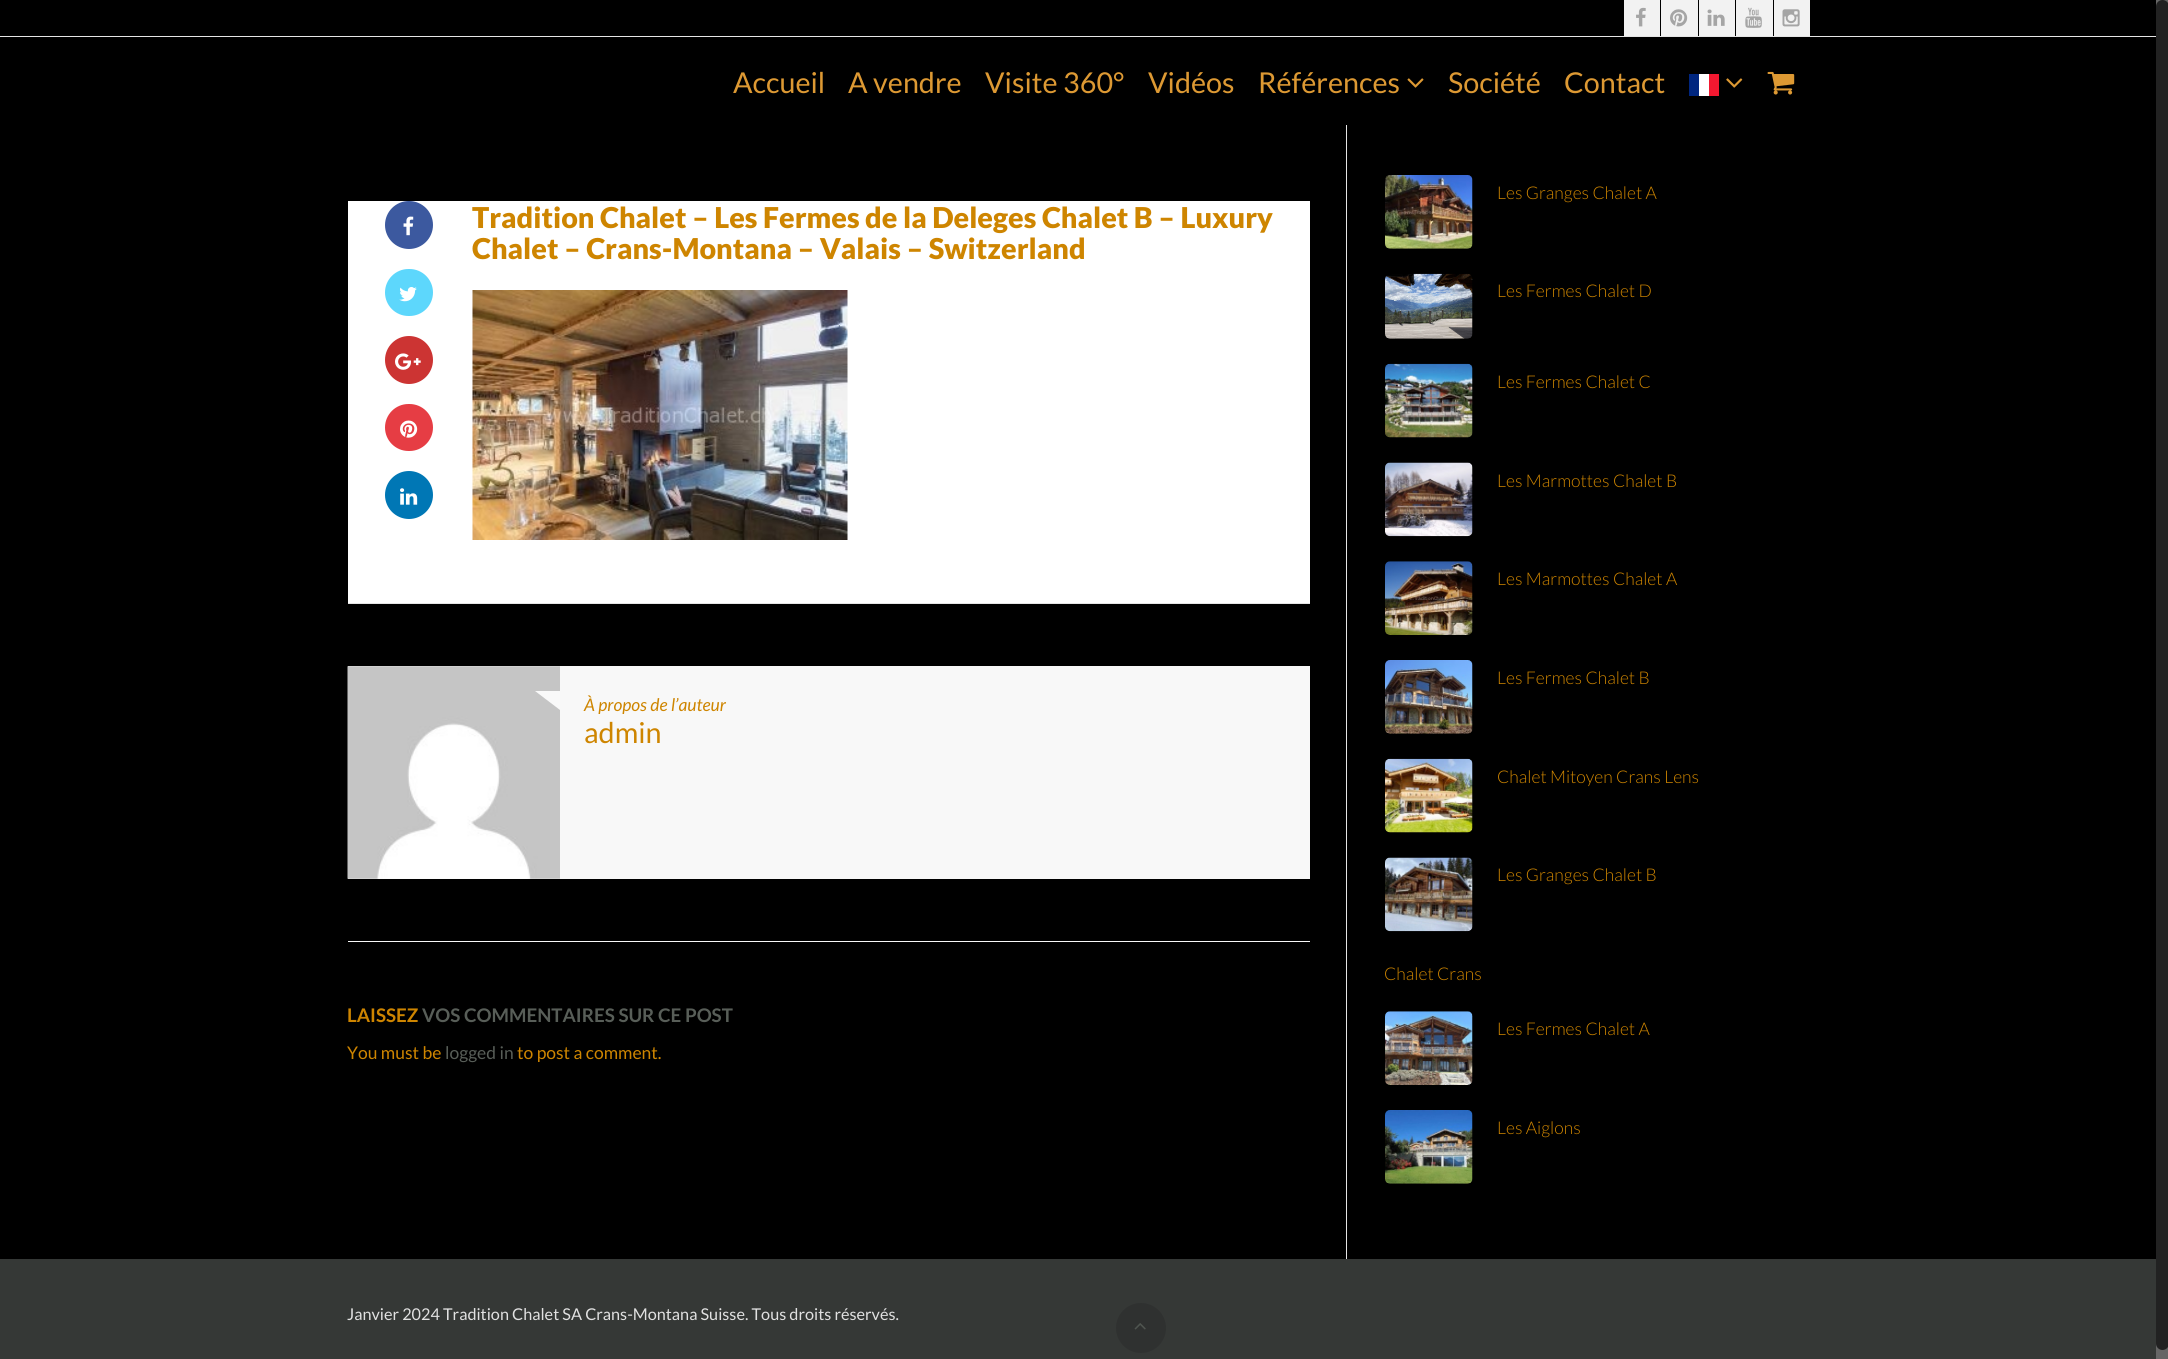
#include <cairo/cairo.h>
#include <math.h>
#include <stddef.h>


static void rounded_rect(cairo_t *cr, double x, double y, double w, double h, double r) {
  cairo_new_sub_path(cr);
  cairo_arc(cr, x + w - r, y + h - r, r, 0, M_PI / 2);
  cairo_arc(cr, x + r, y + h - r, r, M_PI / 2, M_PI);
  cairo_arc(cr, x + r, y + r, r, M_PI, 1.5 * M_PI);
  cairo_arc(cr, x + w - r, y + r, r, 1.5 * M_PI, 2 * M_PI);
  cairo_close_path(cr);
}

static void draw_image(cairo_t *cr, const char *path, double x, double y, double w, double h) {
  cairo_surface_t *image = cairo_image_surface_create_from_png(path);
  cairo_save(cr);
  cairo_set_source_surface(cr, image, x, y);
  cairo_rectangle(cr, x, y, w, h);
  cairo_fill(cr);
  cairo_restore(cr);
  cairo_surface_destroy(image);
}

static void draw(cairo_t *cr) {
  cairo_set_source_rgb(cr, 0, 0, 0);
  cairo_paint(cr);
  cairo_set_source_rgb(cr, 229 / 255.0, 229 / 255.0, 229 / 255.0);
  cairo_rectangle(cr, 0, 36, 2156, 1);
  cairo_fill(cr);
  cairo_set_source_rgb(cr, 242 / 255.0, 242 / 255.0, 242 / 255.0);
  cairo_rectangle(cr, 1624, 0, 36, 36);
  cairo_fill(cr);
  draw_image(cr, "images/1.png", 1636, 7, 10, 20);
  cairo_rectangle(cr, 1661, 0, 37, 36);
  cairo_fill(cr);
  draw_image(cr, "images/2.png", 1670, 9, 18, 18);
  cairo_rectangle(cr, 1699, 0, 36, 36);
  cairo_fill(cr);
  draw_image(cr, "images/3.png", 1707, 9, 18, 17);
  cairo_rectangle(cr, 1736, 0, 37, 36);
  cairo_fill(cr);
  draw_image(cr, "images/4.png", 1745, 7, 17, 21);
  cairo_rectangle(cr, 1774, 0, 36, 36);
  cairo_fill(cr);
  draw_image(cr, "images/5.png", 1782, 9, 18, 18);
  draw_image(cr, "images/6.png", 1407, 78, 17, 10);
  cairo_set_source_rgb(cr, 0, 38 / 255.0, 127 / 255.0);
  cairo_rectangle(cr, 1689, 74, 10, 22);
  cairo_fill(cr);
  cairo_set_source_rgb(cr, 1, 1, 1);
  cairo_rectangle(cr, 1699, 74, 10, 22);
  cairo_fill(cr);
  cairo_set_source_rgb(cr, 243 / 255.0, 24 / 255.0, 48 / 255.0);
  cairo_rectangle(cr, 1709, 74, 10, 22);
  cairo_fill(cr);
  draw_image(cr, "images/7.png", 1726, 78, 17, 10);
  draw_image(cr, "images/8.png", 1767, 71, 28, 24);
  cairo_set_source_rgb(cr, 229 / 255.0, 229 / 255.0, 229 / 255.0);
  cairo_rectangle(cr, 1346, 125, 1, 1134);
  cairo_fill(cr);
  cairo_set_source_rgb(cr, 248 / 255.0, 248 / 255.0, 248 / 255.0);
  cairo_rectangle(cr, 348, 941, 962, 1);
  cairo_fill(cr);
  cairo_set_source_rgb(cr, 1, 1, 1);
  cairo_rectangle(cr, 348, 201, 962, 402);
  cairo_fill(cr);
  cairo_set_source_rgb(cr, 229 / 255.0, 229 / 255.0, 229 / 255.0);
  cairo_rectangle(cr, 348, 603, 962, 1);
  cairo_fill(cr);
  cairo_set_source_rgb(cr, 60 / 255.0, 89 / 255.0, 159 / 255.0);
  cairo_arc(cr, 409, 225, 22.5, 0, 2 * M_PI);
  cairo_fill_preserve(cr);
  cairo_set_line_width(cr, 3);
  cairo_stroke(cr);
  draw_image(cr, "images/9.png", 403, 216, 11, 20);
  cairo_set_source_rgb(cr, 93 / 255.0, 215 / 255.0, 252 / 255.0);
  rounded_rect(cr, 386.5, 270.5, 45, 44, 22);
  cairo_fill_preserve(cr);
  cairo_stroke(cr);
  draw_image(cr, "images/10.png", 399, 287, 18, 15);
  cairo_set_source_rgb(cr, 204 / 255.0, 52 / 255.0, 51 / 255.0);
  cairo_arc(cr, 409, 360, 22.5, 0, 2 * M_PI);
  cairo_fill_preserve(cr);
  cairo_stroke(cr);
  draw_image(cr, "images/11.png", 395, 353, 26, 17);
  cairo_set_source_rgb(cr, 230 / 255.0, 61 / 255.0, 68 / 255.0);
  rounded_rect(cr, 386.5, 405.5, 45, 44, 22);
  cairo_fill_preserve(cr);
  cairo_stroke(cr);
  draw_image(cr, "images/12.png", 400, 420, 18, 18);
  cairo_set_source_rgb(cr, 0, 119 / 255.0, 181 / 255.0);
  cairo_arc(cr, 409, 495, 22.5, 0, 2 * M_PI);
  cairo_fill_preserve(cr);
  cairo_stroke(cr);
  draw_image(cr, "images/13.png", 400, 488, 18, 17);
  draw_image(cr, "images/14.png", 472, 290, 376, 250);
  cairo_set_source_rgb(cr, 248 / 255.0, 248 / 255.0, 248 / 255.0);
  cairo_rectangle(cr, 348, 666, 962, 213);
  cairo_fill(cr);
  draw_image(cr, "images/15.png", 347, 666, 213, 213);
  cairo_set_source_rgb(cr, 249 / 255.0, 249 / 255.0, 249 / 255.0);
  cairo_new_path(cr);
  cairo_move_to(cr, 560, 691);
  cairo_line_to(cr, 560, 710);
  cairo_line_to(cr, 535, 691);
  cairo_close_path(cr);
  cairo_fill(cr);
  draw_image(cr, "images/16.png", 1385, 175, 88, 74);
  draw_image(cr, "images/17.png", 1385, 273, 88, 66);
  draw_image(cr, "images/18.png", 1385, 363, 88, 75);
  draw_image(cr, "images/19.png", 1385, 462, 88, 75);
  draw_image(cr, "images/20.png", 1385, 561, 88, 74);
  draw_image(cr, "images/21.png", 1385, 660, 88, 74);
  draw_image(cr, "images/22.png", 1385, 758, 88, 75);
  draw_image(cr, "images/23.png", 1385, 857, 88, 75);
  draw_image(cr, "images/24.png", 1385, 1011, 88, 74);
  draw_image(cr, "images/25.png", 1385, 1110, 88, 74);
  cairo_set_source_rgb(cr, 53 / 255.0, 56 / 255.0, 54 / 255.0);
  cairo_rectangle(cr, 0, 1259, 2156, 100);
  cairo_fill(cr);
  cairo_set_source_rgb(cr, 47 / 255.0, 49 / 255.0, 48 / 255.0);
  cairo_arc(cr, 1141, 1328, 25, 0, 2 * M_PI);
  cairo_fill(cr);
  draw_image(cr, "images/26.png", 1134, 1323, 12, 7);
  cairo_set_source_rgb(cr, 102 / 255.0, 102 / 255.0, 102 / 255.0);
  cairo_rectangle(cr, 2156, 0, 12, 1359);
  cairo_fill(cr);
  cairo_set_source_rgb(cr, 34 / 255.0, 34 / 255.0, 34 / 255.0);
  rounded_rect(cr, 2156, 0, 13, 1350, 6.5);
  cairo_fill(cr);
  cairo_select_font_face(cr, "Lato", CAIRO_FONT_SLANT_NORMAL, CAIRO_FONT_WEIGHT_NORMAL);
  cairo_set_font_size(cr, 28.75);
  cairo_set_source_rgb(cr, 221 / 255.0, 153 / 255.0, 51 / 255.0);
  cairo_move_to(cr, 733, 93);
  cairo_show_text(cr, "Accueil");
  cairo_move_to(cr, 848, 93);
  cairo_show_text(cr, "A vendre");
  cairo_move_to(cr, 985, 93);
  cairo_show_text(cr, "Visite 360°");
  cairo_move_to(cr, 1148, 93);
  cairo_show_text(cr, "Vidéos");
  cairo_move_to(cr, 1258, 93);
  cairo_show_text(cr, "Références");
  cairo_move_to(cr, 1448, 93);
  cairo_show_text(cr, "Société");
  cairo_move_to(cr, 1564, 93);
  cairo_show_text(cr, "Contact");
  cairo_select_font_face(cr, "Lato Black", CAIRO_FONT_SLANT_NORMAL, CAIRO_FONT_WEIGHT_NORMAL);
  cairo_set_source_rgb(cr, 206 / 255.0, 133 / 255.0, 0);
  cairo_move_to(cr, 472, 228);
  cairo_show_text(cr, "Tradition Chalet – Les Fermes de la Deleges Chalet B – Luxury");
  cairo_move_to(cr, 472, 259);
  cairo_show_text(cr, "Chalet – Crans-Montana – Valais – Switzerland");
  cairo_select_font_face(cr, "Lato", CAIRO_FONT_SLANT_ITALIC, CAIRO_FONT_WEIGHT_NORMAL);
  cairo_set_font_size(cr, 17.5);
  cairo_move_to(cr, 584, 711);
  cairo_show_text(cr, "À propos de l’auteur");
  cairo_select_font_face(cr, "Lato", CAIRO_FONT_SLANT_NORMAL, CAIRO_FONT_WEIGHT_NORMAL);
  cairo_set_font_size(cr, 28.75);
  cairo_move_to(cr, 584, 743);
  cairo_show_text(cr, "admin");
  cairo_select_font_face(cr, "Lato", CAIRO_FONT_SLANT_NORMAL, CAIRO_FONT_WEIGHT_BOLD);
  cairo_set_font_size(cr, 18.75);
  cairo_move_to(cr, 347, 1022);
  cairo_show_text(cr, "LAISSEZ");
  cairo_set_source_rgb(cr, 88 / 255.0, 94 / 255.0, 88 / 255.0);
  cairo_move_to(cr, 422, 1022);
  cairo_show_text(cr, "VOS COMMENTAIRES SUR CE POST");
  cairo_select_font_face(cr, "Lato", CAIRO_FONT_SLANT_NORMAL, CAIRO_FONT_WEIGHT_NORMAL);
  cairo_set_font_size(cr, 17.5);
  cairo_set_source_rgb(cr, 206 / 255.0, 133 / 255.0, 0);
  cairo_move_to(cr, 347, 1059);
  cairo_show_text(cr, "You must be");
  cairo_set_source_rgb(cr, 88 / 255.0, 94 / 255.0, 88 / 255.0);
  cairo_move_to(cr, 445, 1059);
  cairo_show_text(cr, "logged in");
  cairo_set_source_rgb(cr, 206 / 255.0, 133 / 255.0, 0);
  cairo_move_to(cr, 517, 1059);
  cairo_show_text(cr, "to post a comment.");
  cairo_select_font_face(cr, "Lato Light", CAIRO_FONT_SLANT_NORMAL, CAIRO_FONT_WEIGHT_NORMAL);
  cairo_move_to(cr, 1497, 199);
  cairo_show_text(cr, "Les Granges Chalet A");
  cairo_move_to(cr, 1497, 297);
  cairo_show_text(cr, "Les Fermes Chalet D");
  cairo_move_to(cr, 1497, 388);
  cairo_show_text(cr, "Les Fermes Chalet C");
  cairo_move_to(cr, 1497, 487);
  cairo_show_text(cr, "Les Marmottes Chalet B");
  cairo_move_to(cr, 1497, 585);
  cairo_show_text(cr, "Les Marmottes Chalet A");
  cairo_move_to(cr, 1497, 684);
  cairo_show_text(cr, "Les Fermes Chalet B");
  cairo_move_to(cr, 1497, 783);
  cairo_show_text(cr, "Chalet Mitoyen Crans Lens");
  cairo_move_to(cr, 1497, 881);
  cairo_show_text(cr, "Les Granges Chalet B");
  cairo_move_to(cr, 1384, 980);
  cairo_show_text(cr, "Chalet Crans");
  cairo_move_to(cr, 1497, 1035);
  cairo_show_text(cr, "Les Fermes Chalet A");
  cairo_move_to(cr, 1497, 1134);
  cairo_show_text(cr, "Les Aiglons");
  cairo_select_font_face(cr, "Lato", CAIRO_FONT_SLANT_NORMAL, CAIRO_FONT_WEIGHT_NORMAL);
  cairo_set_font_size(cr, 16.25);
  cairo_set_source_rgb(cr, 225 / 255.0, 225 / 255.0, 225 / 255.0);
  cairo_move_to(cr, 347, 1320);
  cairo_show_text(cr, "Janvier 2024 Tradition Chalet SA Crans-Montana Suisse. Tous droits réservés.");
}

int main(void) {
  cairo_surface_t *surface = cairo_image_surface_create(CAIRO_FORMAT_RGB24, 2168, 1359);
  cairo_t *cr = cairo_create(surface);
  cairo_font_options_t *options = cairo_font_options_create();
  cairo_font_options_set_hint_metrics(options, CAIRO_HINT_METRICS_OFF);
  cairo_font_options_set_hint_style(options, CAIRO_HINT_STYLE_NONE);
  cairo_set_font_options(cr, options);
  cairo_set_miter_limit(cr, 4);
  draw(cr);
  cairo_surface_write_to_png(surface, "out.png");
  cairo_font_options_destroy(options);
  cairo_destroy(cr);
  cairo_surface_destroy(surface);
  return 0;
}
